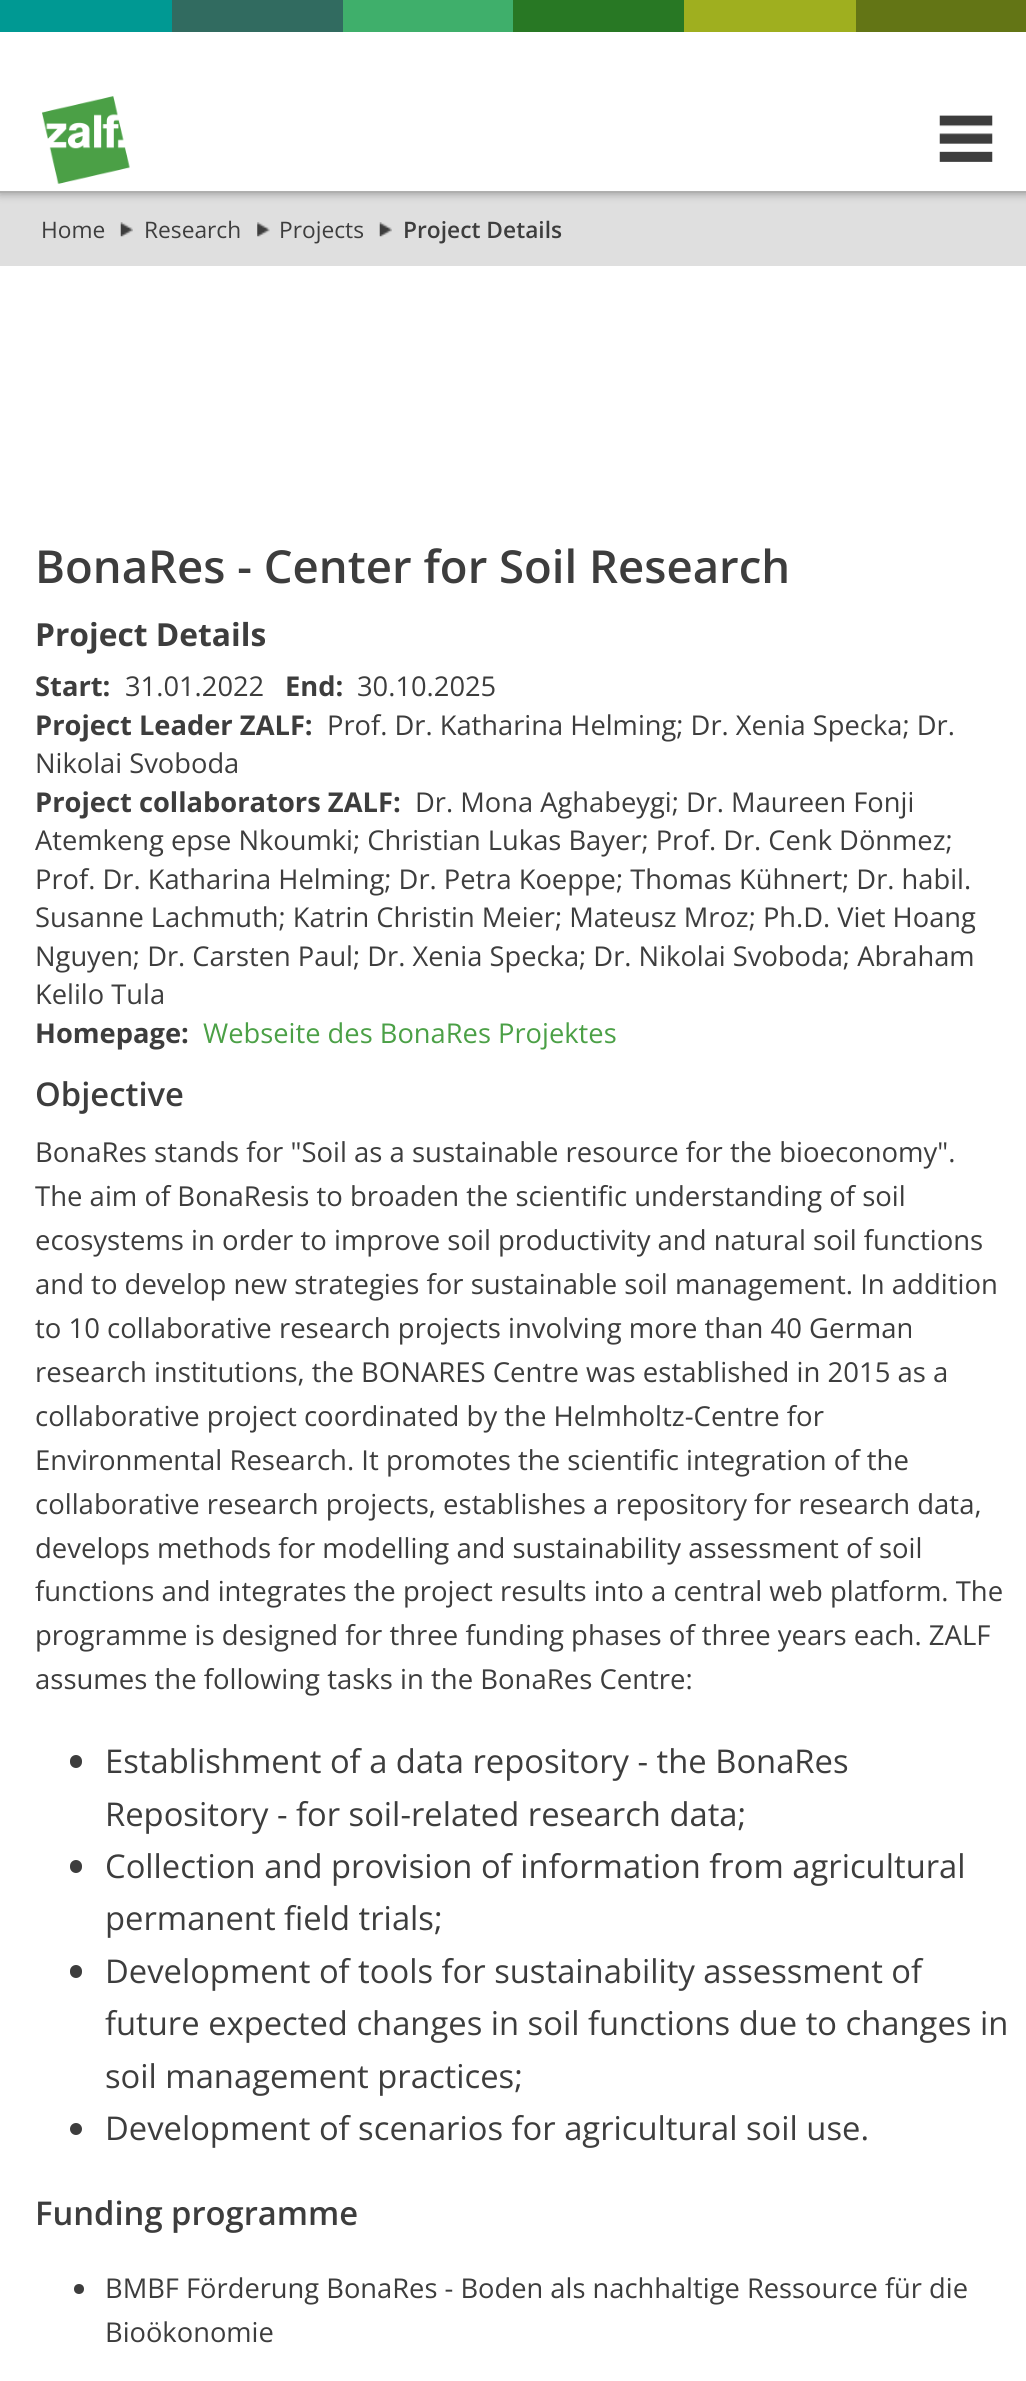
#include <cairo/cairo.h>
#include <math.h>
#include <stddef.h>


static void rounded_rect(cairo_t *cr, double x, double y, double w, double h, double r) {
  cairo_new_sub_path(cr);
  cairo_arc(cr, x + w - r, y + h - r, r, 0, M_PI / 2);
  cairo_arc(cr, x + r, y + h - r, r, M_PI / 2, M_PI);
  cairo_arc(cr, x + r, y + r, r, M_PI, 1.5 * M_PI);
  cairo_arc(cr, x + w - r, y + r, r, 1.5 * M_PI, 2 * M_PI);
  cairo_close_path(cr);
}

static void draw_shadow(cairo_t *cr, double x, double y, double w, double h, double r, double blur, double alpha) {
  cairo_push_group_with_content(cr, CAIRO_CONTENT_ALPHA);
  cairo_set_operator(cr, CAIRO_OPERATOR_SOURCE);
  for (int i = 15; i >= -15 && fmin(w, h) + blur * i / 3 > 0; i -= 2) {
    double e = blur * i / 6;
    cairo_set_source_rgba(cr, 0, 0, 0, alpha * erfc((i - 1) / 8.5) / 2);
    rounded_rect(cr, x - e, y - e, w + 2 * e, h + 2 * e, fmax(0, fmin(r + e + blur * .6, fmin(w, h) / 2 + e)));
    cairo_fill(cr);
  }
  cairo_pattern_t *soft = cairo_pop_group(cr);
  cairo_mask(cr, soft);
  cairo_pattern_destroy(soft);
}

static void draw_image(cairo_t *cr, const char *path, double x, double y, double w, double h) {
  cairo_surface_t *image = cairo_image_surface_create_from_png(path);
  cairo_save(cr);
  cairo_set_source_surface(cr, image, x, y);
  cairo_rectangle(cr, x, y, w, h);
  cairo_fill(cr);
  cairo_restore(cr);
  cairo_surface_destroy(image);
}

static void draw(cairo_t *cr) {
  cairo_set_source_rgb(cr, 1, 1, 1);
  cairo_paint(cr);
  cairo_set_source_rgb(cr, 0, 153 / 255.0, 147 / 255.0);
  cairo_rectangle(cr, 0, 0, 172, 32);
  cairo_fill(cr);
  cairo_set_source_rgb(cr, 49 / 255.0, 107 / 255.0, 96 / 255.0);
  cairo_rectangle(cr, 172, 0, 171, 32);
  cairo_fill(cr);
  cairo_set_source_rgb(cr, 63 / 255.0, 175 / 255.0, 107 / 255.0);
  cairo_rectangle(cr, 343, 0, 170, 32);
  cairo_fill(cr);
  cairo_set_source_rgb(cr, 40 / 255.0, 120 / 255.0, 36 / 255.0);
  cairo_rectangle(cr, 513, 0, 171, 32);
  cairo_fill(cr);
  cairo_set_source_rgb(cr, 159 / 255.0, 175 / 255.0, 31 / 255.0);
  cairo_rectangle(cr, 684, 0, 172, 32);
  cairo_fill(cr);
  cairo_set_source_rgb(cr, 99 / 255.0, 117 / 255.0, 21 / 255.0);
  cairo_rectangle(cr, 856, 0, 170, 32);
  cairo_fill(cr);
  draw_image(cr, "images/1.png", 42, 96, 88, 88);
  draw_image(cr, "images/2.png", 939, 115, 54, 47);
  cairo_set_source_rgb(cr, 223 / 255.0, 223 / 255.0, 223 / 255.0);
  cairo_rectangle(cr, 0, 193, 1026, 73);
  cairo_fill(cr);
  cairo_save(cr);
  cairo_rectangle(cr, 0, 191, 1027, 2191);
  cairo_clip(cr);
  cairo_set_source_rgb(cr, 0, 0, 0);
  draw_shadow(cr, 0, 189, 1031, 5, 0, 4.5, 0.3);
  cairo_restore(cr);
  cairo_set_source_rgb(cr, 175 / 255.0, 175 / 255.0, 174 / 255.0);
  cairo_rectangle(cr, 0, 191, 1026, 2);
  cairo_fill(cr);
  draw_image(cr, "images/3.png", 120, 222, 13, 15);
  draw_image(cr, "images/4.png", 257, 222, 13, 15);
  draw_image(cr, "images/3.png", 379, 222, 13, 15);
  cairo_set_source_rgb(cr, 61 / 255.0, 61 / 255.0, 61 / 255.0);
  rounded_rect(cr, 70, 1755, 12, 13, 6);
  cairo_fill(cr);
  rounded_rect(cr, 70, 1860, 12, 13, 6);
  cairo_fill(cr);
  rounded_rect(cr, 70, 1965, 12, 13, 6);
  cairo_fill(cr);
  cairo_arc(cr, 76, 2129, 6, 0, 2 * M_PI);
  cairo_fill(cr);
  cairo_arc(cr, 79, 2289, 5, 0, 2 * M_PI);
  cairo_fill(cr);
  cairo_select_font_face(cr, "Open Sans", CAIRO_FONT_SLANT_NORMAL, CAIRO_FONT_WEIGHT_NORMAL);
  cairo_set_font_size(cr, 22.75);
  cairo_move_to(cr, 41, 238);
  cairo_show_text(cr, "Home");
  cairo_move_to(cr, 144, 238);
  cairo_show_text(cr, "Research");
  cairo_move_to(cr, 279, 238);
  cairo_show_text(cr, "Projects");
  cairo_select_font_face(cr, "Open Sans SemiBold", CAIRO_FONT_SLANT_NORMAL, CAIRO_FONT_WEIGHT_NORMAL);
  cairo_move_to(cr, 403, 238);
  cairo_show_text(cr, "Project Details");
  cairo_set_font_size(cr, 45.5);
  cairo_move_to(cr, 35, 583);
  cairo_show_text(cr, "BonaRes - Center for Soil Research");
  cairo_select_font_face(cr, "Open Sans", CAIRO_FONT_SLANT_NORMAL, CAIRO_FONT_WEIGHT_BOLD);
  cairo_set_font_size(cr, 31.75);
  cairo_move_to(cr, 35, 646);
  cairo_show_text(cr, "Project Details");
  cairo_set_font_size(cr, 27.3);
  cairo_move_to(cr, 35, 696);
  cairo_show_text(cr, "Start:");
  cairo_select_font_face(cr, "Open Sans", CAIRO_FONT_SLANT_NORMAL, CAIRO_FONT_WEIGHT_NORMAL);
  cairo_move_to(cr, 125, 696);
  cairo_show_text(cr, "31.01.2022");
  cairo_select_font_face(cr, "Open Sans", CAIRO_FONT_SLANT_NORMAL, CAIRO_FONT_WEIGHT_BOLD);
  cairo_move_to(cr, 285, 696);
  cairo_show_text(cr, "End:");
  cairo_select_font_face(cr, "Open Sans", CAIRO_FONT_SLANT_NORMAL, CAIRO_FONT_WEIGHT_NORMAL);
  cairo_move_to(cr, 357, 696);
  cairo_show_text(cr, "30.10.2025");
  cairo_select_font_face(cr, "Open Sans", CAIRO_FONT_SLANT_NORMAL, CAIRO_FONT_WEIGHT_BOLD);
  cairo_move_to(cr, 35, 735);
  cairo_show_text(cr, "Project Leader ZALF:");
  cairo_select_font_face(cr, "Open Sans", CAIRO_FONT_SLANT_NORMAL, CAIRO_FONT_WEIGHT_NORMAL);
  cairo_move_to(cr, 327, 735);
  cairo_show_text(cr, "Prof. Dr. Katharina Helming; Dr. Xenia Specka; Dr.");
  cairo_move_to(cr, 35, 773);
  cairo_show_text(cr, "Nikolai Svoboda");
  cairo_select_font_face(cr, "Open Sans", CAIRO_FONT_SLANT_NORMAL, CAIRO_FONT_WEIGHT_BOLD);
  cairo_move_to(cr, 35, 812);
  cairo_show_text(cr, "Project collaborators ZALF:");
  cairo_select_font_face(cr, "Open Sans", CAIRO_FONT_SLANT_NORMAL, CAIRO_FONT_WEIGHT_NORMAL);
  cairo_move_to(cr, 415, 812);
  cairo_show_text(cr, "Dr. Mona Aghabeygi; Dr. Maureen Fonji");
  cairo_move_to(cr, 35, 850);
  cairo_show_text(cr, "Atemkeng epse Nkoumki; Christian Lukas Bayer; Prof. Dr. Cenk Dönmez;");
  cairo_move_to(cr, 35, 889);
  cairo_show_text(cr, "Prof. Dr. Katharina Helming; Dr. Petra Koeppe; Thomas Kühnert; Dr. habil.");
  cairo_move_to(cr, 35, 927);
  cairo_show_text(cr, "Susanne Lachmuth; Katrin Christin Meier; Mateusz Mroz; Ph.D. Viet Hoang");
  cairo_move_to(cr, 35, 966);
  cairo_show_text(cr, "Nguyen; Dr. Carsten Paul; Dr. Xenia Specka; Dr. Nikolai Svoboda; Abraham");
  cairo_move_to(cr, 35, 1004);
  cairo_show_text(cr, "Kelilo Tula");
  cairo_select_font_face(cr, "Open Sans", CAIRO_FONT_SLANT_NORMAL, CAIRO_FONT_WEIGHT_BOLD);
  cairo_move_to(cr, 35, 1043);
  cairo_show_text(cr, "Homepage:");
  cairo_select_font_face(cr, "Open Sans", CAIRO_FONT_SLANT_NORMAL, CAIRO_FONT_WEIGHT_NORMAL);
  cairo_set_source_rgb(cr, 75 / 255.0, 160 / 255.0, 70 / 255.0);
  cairo_move_to(cr, 203, 1043);
  cairo_show_text(cr, "Webseite des BonaRes Projektes");
  cairo_select_font_face(cr, "Open Sans SemiBold", CAIRO_FONT_SLANT_NORMAL, CAIRO_FONT_WEIGHT_NORMAL);
  cairo_set_font_size(cr, 32.75);
  cairo_set_source_rgb(cr, 61 / 255.0, 61 / 255.0, 61 / 255.0);
  cairo_move_to(cr, 35, 1106);
  cairo_show_text(cr, "Objective");
  cairo_select_font_face(cr, "Open Sans", CAIRO_FONT_SLANT_NORMAL, CAIRO_FONT_WEIGHT_NORMAL);
  cairo_set_font_size(cr, 27.5);
  cairo_move_to(cr, 35, 1162);
  cairo_show_text(cr, "BonaRes stands for \"Soil as a sustainable resource for the bioeconomy\".");
  cairo_move_to(cr, 35, 1206);
  cairo_show_text(cr, "The aim of BonaResis to broaden the scientific understanding of soil");
  cairo_move_to(cr, 35, 1250);
  cairo_show_text(cr, "ecosystems in order to improve soil productivity and natural soil functions");
  cairo_move_to(cr, 35, 1294);
  cairo_show_text(cr, "and to develop new strategies for sustainable soil management. In addition");
  cairo_move_to(cr, 35, 1338);
  cairo_show_text(cr, "to 10 collaborative research projects involving more than 40 German");
  cairo_move_to(cr, 35, 1382);
  cairo_show_text(cr, "research institutions, the BONARES Centre was established in 2015 as a");
  cairo_move_to(cr, 35, 1426);
  cairo_show_text(cr, "collaborative project coordinated by the Helmholtz-Centre for");
  cairo_move_to(cr, 35, 1470);
  cairo_show_text(cr, "Environmental Research. It promotes the scientific integration of the");
  cairo_move_to(cr, 35, 1514);
  cairo_show_text(cr, "collaborative research projects, establishes a repository for research data,");
  cairo_move_to(cr, 35, 1558);
  cairo_show_text(cr, "develops methods for modelling and sustainability assessment of soil");
  cairo_move_to(cr, 35, 1601);
  cairo_show_text(cr, "functions and integrates the project results into a central web platform. The");
  cairo_move_to(cr, 35, 1645);
  cairo_show_text(cr, "programme is designed for three funding phases of three years each. ZALF");
  cairo_move_to(cr, 35, 1689);
  cairo_show_text(cr, "assumes the following tasks in the BonaRes Centre:");
  cairo_set_font_size(cr, 32.75);
  cairo_move_to(cr, 105, 1773);
  cairo_show_text(cr, "Establishment of a data repository - the BonaRes");
  cairo_move_to(cr, 105, 1826);
  cairo_show_text(cr, "Repository - for soil-related research data;");
  cairo_move_to(cr, 105, 1878);
  cairo_show_text(cr, "Collection and provision of information from agricultural");
  cairo_move_to(cr, 105, 1930);
  cairo_show_text(cr, "permanent field trials;");
  cairo_move_to(cr, 105, 1983);
  cairo_show_text(cr, "Development of tools for sustainability assessment of");
  cairo_move_to(cr, 105, 2035);
  cairo_show_text(cr, "future expected changes in soil functions due to changes in");
  cairo_move_to(cr, 105, 2088);
  cairo_show_text(cr, "soil management practices;");
  cairo_move_to(cr, 105, 2140);
  cairo_show_text(cr, "Development of scenarios for agricultural soil use.");
  cairo_select_font_face(cr, "Open Sans SemiBold", CAIRO_FONT_SLANT_NORMAL, CAIRO_FONT_WEIGHT_NORMAL);
  cairo_move_to(cr, 35, 2225);
  cairo_show_text(cr, "Funding programme");
  cairo_select_font_face(cr, "Open Sans", CAIRO_FONT_SLANT_NORMAL, CAIRO_FONT_WEIGHT_NORMAL);
  cairo_set_font_size(cr, 27.3);
  cairo_move_to(cr, 105, 2298);
  cairo_show_text(cr, "BMBF Förderung BonaRes - Boden als nachhaltige Ressource für die");
  cairo_move_to(cr, 105, 2342);
  cairo_show_text(cr, "Bioökonomie");
}

int main(void) {
  cairo_surface_t *surface = cairo_image_surface_create(CAIRO_FORMAT_RGB24, 1026, 2381);
  cairo_t *cr = cairo_create(surface);
  cairo_font_options_t *options = cairo_font_options_create();
  cairo_font_options_set_hint_metrics(options, CAIRO_HINT_METRICS_OFF);
  cairo_font_options_set_hint_style(options, CAIRO_HINT_STYLE_NONE);
  cairo_set_font_options(cr, options);
  cairo_set_miter_limit(cr, 4);
  draw(cr);
  cairo_surface_write_to_png(surface, "out.png");
  cairo_font_options_destroy(options);
  cairo_destroy(cr);
  cairo_surface_destroy(surface);
  return 0;
}
